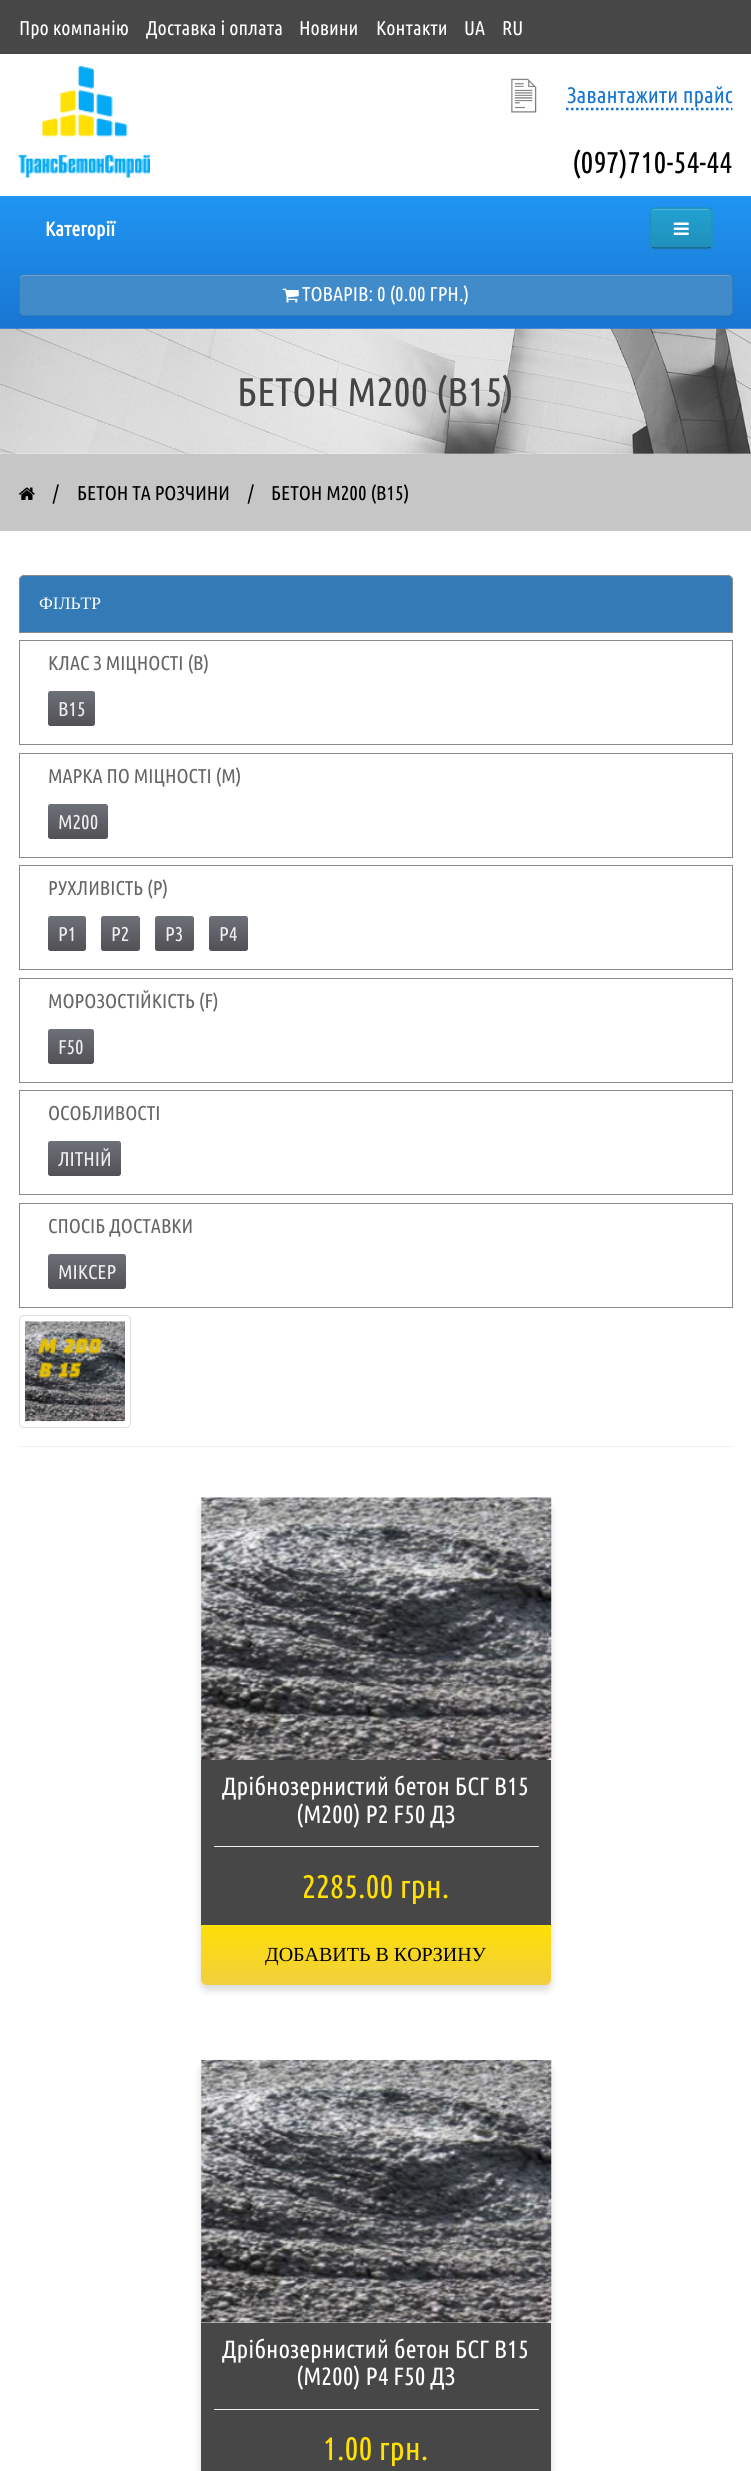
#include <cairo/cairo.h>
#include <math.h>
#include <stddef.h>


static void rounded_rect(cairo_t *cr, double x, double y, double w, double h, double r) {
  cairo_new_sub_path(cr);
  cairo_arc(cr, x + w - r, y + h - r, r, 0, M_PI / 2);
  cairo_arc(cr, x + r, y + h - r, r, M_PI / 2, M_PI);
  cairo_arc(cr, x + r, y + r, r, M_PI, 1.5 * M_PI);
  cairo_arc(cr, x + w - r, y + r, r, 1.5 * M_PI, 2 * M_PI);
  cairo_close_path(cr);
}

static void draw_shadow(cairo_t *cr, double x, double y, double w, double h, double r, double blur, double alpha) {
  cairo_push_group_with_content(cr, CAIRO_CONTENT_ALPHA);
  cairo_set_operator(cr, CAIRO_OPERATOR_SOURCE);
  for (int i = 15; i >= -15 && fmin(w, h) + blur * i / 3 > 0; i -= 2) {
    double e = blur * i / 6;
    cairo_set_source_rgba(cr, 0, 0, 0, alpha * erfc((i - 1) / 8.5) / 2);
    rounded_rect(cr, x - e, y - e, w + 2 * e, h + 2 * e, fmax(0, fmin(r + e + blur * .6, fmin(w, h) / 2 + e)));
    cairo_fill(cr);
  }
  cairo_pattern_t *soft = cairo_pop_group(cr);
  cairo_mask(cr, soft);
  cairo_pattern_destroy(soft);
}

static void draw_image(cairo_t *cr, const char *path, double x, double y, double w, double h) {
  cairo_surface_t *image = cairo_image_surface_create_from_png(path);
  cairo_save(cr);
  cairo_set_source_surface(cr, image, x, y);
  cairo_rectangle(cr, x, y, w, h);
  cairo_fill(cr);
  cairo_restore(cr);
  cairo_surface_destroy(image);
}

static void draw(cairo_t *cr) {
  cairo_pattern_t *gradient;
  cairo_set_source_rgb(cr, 1, 1, 1);
  cairo_paint(cr);
  cairo_set_source_rgb(cr, 71 / 255.0, 71 / 255.0, 71 / 255.0);
  cairo_rectangle(cr, 0, 0, 751, 54);
  cairo_fill(cr);
  draw_image(cr, "images/1.png", 18, 66, 132, 112);
  draw_image(cr, "images/2.png", 511, 78, 26, 35);
  cairo_new_path(cr);
  cairo_move_to(cr, 566, 109);
  cairo_line_to(cr, 732.5, 109);
  cairo_set_source_rgb(cr, 24 / 255.0, 117 / 255.0, 209 / 255.0);
  cairo_set_line_width(cr, 2.5);
  cairo_set_dash(cr, (double[]){2.5, 2.5}, 2, 0);
  cairo_stroke(cr);
  gradient = cairo_pattern_create_linear(376, 329, 376, 196);
  cairo_pattern_add_color_stop_rgba(gradient, 0, 24 / 255.0, 117 / 255.0, 209 / 255.0, 1);
  cairo_pattern_add_color_stop_rgba(gradient, 1, 32 / 255.0, 149 / 255.0, 242 / 255.0, 1);
  cairo_set_source(cr, gradient);
  cairo_pattern_destroy(gradient);
  cairo_rectangle(cr, 0, 196, 751, 133);
  cairo_fill(cr);
  cairo_set_source_rgb(cr, 0, 0, 0);
  draw_shadow(cr, 650, 209, 63, 41, 5, 1, 0.05);
  cairo_set_source_rgb(cr, 34 / 255.0, 154 / 255.0, 200 / 255.0);
  rounded_rect(cr, 650, 208, 63, 41, 5);
  cairo_fill(cr);
  cairo_save(cr);
  rounded_rect(cr, 650, 208, 63, 41, 5);
  cairo_clip(cr);
  gradient = cairo_pattern_create_linear(681, 209, 681, 248);
  cairo_pattern_add_color_stop_rgba(gradient, 0, 35 / 255.0, 161 / 255.0, 209 / 255.0, 1);
  cairo_pattern_add_color_stop_rgba(gradient, 1, 31 / 255.0, 144 / 255.0, 187 / 255.0, 1);
  cairo_set_source(cr, gradient);
  cairo_pattern_destroy(gradient);
  cairo_rectangle(cr, 650, 209, 63, 39);
  cairo_fill(cr);
  cairo_restore(cr);
  cairo_set_source_rgb(cr, 79 / 255.0, 180 / 255.0, 218 / 255.0);
  cairo_new_path(cr);
  cairo_move_to(cr, 655, 210);
  cairo_line_to(cr, 708, 210);
  cairo_curve_to(cr, 710, 210, 711, 212, 711, 214);
  cairo_curve_to(cr, 711, 207, 703, 209, 698, 209);
  cairo_line_to(cr, 664, 209);
  cairo_curve_to(cr, 659, 209, 651, 207, 651, 214);
  cairo_curve_to(cr, 651, 212, 653, 210, 655, 210);
  cairo_close_path(cr);
  cairo_fill(cr);
  cairo_new_path(cr);
  cairo_move_to(cr, 710.5, 247);
  cairo_curve_to(cr, 710, 247.5, 708.5, 248, 707.5, 248);
  cairo_line_to(cr, 655, 248);
  cairo_curve_to(cr, 654, 248, 652.5, 247.5, 652, 247);
  cairo_set_source_rgb(cr, 20 / 255.0, 94 / 255.0, 122 / 255.0);
  cairo_set_line_width(cr, 1.2);
  cairo_set_dash(cr, NULL, 0, 0);
  cairo_stroke(cr);
  cairo_new_path(cr);
  cairo_move_to(cr, 652, 247);
  cairo_curve_to(cr, 651, 246, 650.5, 245, 650.5, 244);
  cairo_line_to(cr, 650.5, 212.5);
  cairo_curve_to(cr, 650.5, 211.5, 651, 210, 652, 209.5);
  cairo_curve_to(cr, 652.5, 208.5, 654, 208, 655, 208);
  cairo_line_to(cr, 707.5, 208);
  cairo_curve_to(cr, 708.5, 208, 710, 208.5, 710.5, 209.5);
  cairo_curve_to(cr, 711.5, 210, 712, 211.5, 712, 212.5);
  cairo_line_to(cr, 712, 244);
  cairo_curve_to(cr, 712, 245, 711.5, 246, 710.5, 247);
  cairo_set_source_rgb(cr, 31 / 255.0, 144 / 255.0, 187 / 255.0);
  cairo_stroke(cr);
  draw_image(cr, "images/3.png", 673, 222, 16, 13);
  cairo_set_source_rgb(cr, 0, 0, 0);
  draw_shadow(cr, 19, 275, 714, 43, 5, 1, 0.05);
  cairo_set_source_rgb(cr, 66 / 255.0, 139 / 255.0, 202 / 255.0);
  rounded_rect(cr, 19, 274, 714, 42, 5);
  cairo_fill(cr);
  cairo_set_source_rgb(cr, 104 / 255.0, 162 / 255.0, 213 / 255.0);
  cairo_new_path(cr);
  cairo_move_to(cr, 24, 276);
  cairo_line_to(cr, 728, 276);
  cairo_curve_to(cr, 730, 276, 731, 278, 731, 280);
  cairo_curve_to(cr, 731, 277, 730, 275, 727, 275);
  cairo_line_to(cr, 24, 275);
  cairo_line_to(cr, 21, 276);
  cairo_line_to(cr, 20, 277);
  cairo_line_to(cr, 20, 280);
  cairo_curve_to(cr, 20, 278, 22, 276, 24, 276);
  cairo_close_path(cr);
  cairo_fill(cr);
  rounded_rect(cr, 19.5, 274.5, 713, 41, 4.5);
  cairo_set_source_rgb(cr, 53 / 255.0, 126 / 255.0, 189 / 255.0);
  cairo_set_line_width(cr, 1);
  cairo_stroke(cr);
  draw_image(cr, "images/4.png", 282, 288, 17, 15);
  draw_image(cr, "images/5.png", 0, 328, 751, 126);
  cairo_set_source_rgb(cr, 198 / 255.0, 198 / 255.0, 198 / 255.0);
  cairo_rectangle(cr, 0, 454, 751, 77);
  cairo_fill(cr);
  draw_image(cr, "images/6.png", 19, 487, 16, 13);
  cairo_set_source_rgb(cr, 51 / 255.0, 122 / 255.0, 183 / 255.0);
  cairo_new_path(cr);
  cairo_move_to(cr, 24, 575.5);
  cairo_line_to(cr, 728, 575.5);
  cairo_curve_to(cr, 730.5, 575.5, 732.5, 577.5, 732.5, 580);
  cairo_line_to(cr, 732.5, 632.5);
  cairo_line_to(cr, 19.5, 632.5);
  cairo_line_to(cr, 19.5, 580);
  cairo_curve_to(cr, 19.5, 577.5, 21.5, 575.5, 24, 575.5);
  cairo_close_path(cr);
  cairo_fill_preserve(cr);
  cairo_set_source_rgb(cr, 137 / 255.0, 137 / 255.0, 137 / 255.0);
  cairo_stroke(cr);
  cairo_rectangle(cr, 19.5, 640.5, 713, 104);
  cairo_stroke(cr);
  gradient = cairo_pattern_create_linear(71, 691, 71, 726);
  cairo_pattern_add_color_stop_rgba(gradient, 0, 110 / 255.0, 112 / 255.0, 120 / 255.0, 1);
  cairo_pattern_add_color_stop_rgba(gradient, 1, 81 / 255.0, 81 / 255.0, 86 / 255.0, 1);
  cairo_set_source(cr, gradient);
  cairo_pattern_destroy(gradient);
  rounded_rect(cr, 48, 691, 47, 35, 2.5);
  cairo_fill(cr);
  cairo_rectangle(cr, 19.5, 753.5, 713, 104);
  cairo_set_source_rgb(cr, 137 / 255.0, 137 / 255.0, 137 / 255.0);
  cairo_stroke(cr);
  gradient = cairo_pattern_create_linear(78, 804, 78, 839);
  cairo_pattern_add_color_stop_rgba(gradient, 0, 110 / 255.0, 112 / 255.0, 120 / 255.0, 1);
  cairo_pattern_add_color_stop_rgba(gradient, 1, 81 / 255.0, 81 / 255.0, 86 / 255.0, 1);
  cairo_set_source(cr, gradient);
  cairo_pattern_destroy(gradient);
  rounded_rect(cr, 48, 804, 60, 35, 2.5);
  cairo_fill(cr);
  cairo_rectangle(cr, 19.5, 865.5, 713, 104);
  cairo_set_source_rgb(cr, 137 / 255.0, 137 / 255.0, 137 / 255.0);
  cairo_stroke(cr);
  gradient = cairo_pattern_create_linear(67, 916, 67, 951);
  cairo_pattern_add_color_stop_rgba(gradient, 0, 110 / 255.0, 112 / 255.0, 120 / 255.0, 1);
  cairo_pattern_add_color_stop_rgba(gradient, 1, 81 / 255.0, 81 / 255.0, 86 / 255.0, 1);
  cairo_set_source(cr, gradient);
  cairo_pattern_destroy(gradient);
  rounded_rect(cr, 48, 916, 38, 35, 2.5);
  cairo_fill(cr);
  gradient = cairo_pattern_create_linear(121, 916, 121, 951);
  cairo_pattern_add_color_stop_rgba(gradient, 0, 110 / 255.0, 112 / 255.0, 120 / 255.0, 1);
  cairo_pattern_add_color_stop_rgba(gradient, 1, 81 / 255.0, 81 / 255.0, 86 / 255.0, 1);
  cairo_set_source(cr, gradient);
  cairo_pattern_destroy(gradient);
  rounded_rect(cr, 101, 916, 39, 35, 2.5);
  cairo_fill(cr);
  gradient = cairo_pattern_create_linear(174, 916, 174, 951);
  cairo_pattern_add_color_stop_rgba(gradient, 0, 110 / 255.0, 112 / 255.0, 120 / 255.0, 1);
  cairo_pattern_add_color_stop_rgba(gradient, 1, 81 / 255.0, 81 / 255.0, 86 / 255.0, 1);
  cairo_set_source(cr, gradient);
  cairo_pattern_destroy(gradient);
  rounded_rect(cr, 155, 916, 39, 35, 2.5);
  cairo_fill(cr);
  gradient = cairo_pattern_create_linear(228, 916, 228, 951);
  cairo_pattern_add_color_stop_rgba(gradient, 0, 110 / 255.0, 112 / 255.0, 120 / 255.0, 1);
  cairo_pattern_add_color_stop_rgba(gradient, 1, 81 / 255.0, 81 / 255.0, 86 / 255.0, 1);
  cairo_set_source(cr, gradient);
  cairo_pattern_destroy(gradient);
  rounded_rect(cr, 209, 916, 39, 35, 2.5);
  cairo_fill(cr);
  cairo_rectangle(cr, 19.5, 978.5, 713, 104);
  cairo_set_source_rgb(cr, 137 / 255.0, 137 / 255.0, 137 / 255.0);
  cairo_stroke(cr);
  gradient = cairo_pattern_create_linear(71, 1029, 71, 1064);
  cairo_pattern_add_color_stop_rgba(gradient, 0, 110 / 255.0, 112 / 255.0, 120 / 255.0, 1);
  cairo_pattern_add_color_stop_rgba(gradient, 1, 81 / 255.0, 81 / 255.0, 86 / 255.0, 1);
  cairo_set_source(cr, gradient);
  cairo_pattern_destroy(gradient);
  rounded_rect(cr, 48, 1029, 46, 35, 2.5);
  cairo_fill(cr);
  cairo_rectangle(cr, 19.5, 1090.5, 713, 104);
  cairo_set_source_rgb(cr, 137 / 255.0, 137 / 255.0, 137 / 255.0);
  cairo_stroke(cr);
  gradient = cairo_pattern_create_linear(84, 1141, 84, 1176);
  cairo_pattern_add_color_stop_rgba(gradient, 0, 110 / 255.0, 112 / 255.0, 120 / 255.0, 1);
  cairo_pattern_add_color_stop_rgba(gradient, 1, 81 / 255.0, 81 / 255.0, 86 / 255.0, 1);
  cairo_set_source(cr, gradient);
  cairo_pattern_destroy(gradient);
  rounded_rect(cr, 48, 1141, 73, 35, 2.5);
  cairo_fill(cr);
  cairo_rectangle(cr, 19.5, 1203.5, 713, 104);
  cairo_set_source_rgb(cr, 137 / 255.0, 137 / 255.0, 137 / 255.0);
  cairo_stroke(cr);
  gradient = cairo_pattern_create_linear(87, 1254, 87, 1289);
  cairo_pattern_add_color_stop_rgba(gradient, 0, 110 / 255.0, 112 / 255.0, 120 / 255.0, 1);
  cairo_pattern_add_color_stop_rgba(gradient, 1, 81 / 255.0, 81 / 255.0, 86 / 255.0, 1);
  cairo_set_source(cr, gradient);
  cairo_pattern_destroy(gradient);
  rounded_rect(cr, 48, 1254, 78, 35, 2.5);
  cairo_fill(cr);
  rounded_rect(cr, 19.5, 1315.5, 111, 112, 4.5);
  cairo_set_source_rgb(cr, 221 / 255.0, 221 / 255.0, 221 / 255.0);
  cairo_stroke(cr);
  draw_image(cr, "images/7.png", 25, 1321, 100, 101);
  cairo_set_source_rgb(cr, 238 / 255.0, 238 / 255.0, 238 / 255.0);
  cairo_rectangle(cr, 19, 1446, 714, 1);
  cairo_fill(cr);
  cairo_set_source_rgb(cr, 0, 0, 0);
  draw_shadow(cr, 201, 1503, 350, 487, 6, 4, 0.15);
  draw_image(cr, "images/8.png", 201, 1497, 351, 263);
  cairo_set_source_rgb(cr, 71 / 255.0, 71 / 255.0, 71 / 255.0);
  cairo_rectangle(cr, 201, 1760, 350, 165);
  cairo_fill(cr);
  cairo_set_source_rgb(cr, 238 / 255.0, 238 / 255.0, 238 / 255.0);
  cairo_rectangle(cr, 214, 1846, 325, 1);
  cairo_fill(cr);
  gradient = cairo_pattern_create_linear(376, 1985, 376, 1925);
  cairo_pattern_add_color_stop_rgba(gradient, 0, 241 / 255.0, 207 / 255.0, 63 / 255.0, 1);
  cairo_pattern_add_color_stop_rgba(gradient, 1, 254 / 255.0, 223 / 255.0, 5 / 255.0, 1);
  cairo_set_source(cr, gradient);
  cairo_pattern_destroy(gradient);
  cairo_new_path(cr);
  cairo_move_to(cr, 201, 1925);
  cairo_line_to(cr, 551, 1925);
  cairo_line_to(cr, 551, 1979);
  cairo_curve_to(cr, 551, 1982.5, 548.5, 1985, 545, 1985);
  cairo_line_to(cr, 207, 1985);
  cairo_curve_to(cr, 203.5, 1985, 201, 1982.5, 201, 1979);
  cairo_close_path(cr);
  cairo_fill(cr);
  cairo_set_source_rgb(cr, 0, 0, 0);
  draw_shadow(cr, 201, 2065, 350, 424, 6, 4, 0.15);
  draw_image(cr, "images/9.png", 201, 2060, 351, 263);
  cairo_set_source_rgb(cr, 71 / 255.0, 71 / 255.0, 71 / 255.0);
  cairo_rectangle(cr, 201, 2323, 350, 148);
  cairo_fill(cr);
  cairo_set_source_rgb(cr, 238 / 255.0, 238 / 255.0, 238 / 255.0);
  cairo_rectangle(cr, 214, 2409, 325, 1);
  cairo_fill(cr);
  cairo_select_font_face(cr, "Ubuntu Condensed", CAIRO_FONT_SLANT_NORMAL, CAIRO_FONT_WEIGHT_NORMAL);
  cairo_set_font_size(cr, 20);
  cairo_set_source_rgb(cr, 1, 1, 1);
  cairo_move_to(cr, 19, 35);
  cairo_show_text(cr, "Про компанію");
  cairo_move_to(cr, 146, 35);
  cairo_show_text(cr, "Доставка і оплата");
  cairo_move_to(cr, 299, 35);
  cairo_show_text(cr, "Новини");
  cairo_move_to(cr, 376, 35);
  cairo_show_text(cr, "Контакти");
  cairo_move_to(cr, 464, 35);
  cairo_show_text(cr, "UA");
  cairo_move_to(cr, 502, 35);
  cairo_show_text(cr, "RU");
  cairo_set_font_size(cr, 22.5);
  cairo_set_source_rgb(cr, 24 / 255.0, 117 / 255.0, 209 / 255.0);
  cairo_move_to(cr, 567, 103);
  cairo_show_text(cr, "Завантажити прайс");
  cairo_set_font_size(cr, 30);
  cairo_set_source_rgb(cr, 0, 0, 0);
  cairo_move_to(cr, 572, 173);
  cairo_show_text(cr, "(097)710-54-44");
  cairo_select_font_face(cr, "Ubuntu Condensed", CAIRO_FONT_SLANT_NORMAL, CAIRO_FONT_WEIGHT_BOLD);
  cairo_set_font_size(cr, 20);
  cairo_set_source_rgb(cr, 1, 1, 1);
  cairo_move_to(cr, 45, 236);
  cairo_show_text(cr, "Категорії");
  cairo_select_font_face(cr, "Ubuntu Condensed", CAIRO_FONT_SLANT_NORMAL, CAIRO_FONT_WEIGHT_NORMAL);
  cairo_move_to(cr, 302, 301);
  cairo_show_text(cr, "ТОВАРІВ: 0 (0.00 ГРН.)");
  cairo_set_font_size(cr, 40);
  cairo_set_source_rgb(cr, 68 / 255.0, 68 / 255.0, 68 / 255.0);
  cairo_move_to(cr, 237, 406);
  cairo_show_text(cr, "БЕТОН М200 (В15)");
  cairo_set_font_size(cr, 20);
  cairo_set_source_rgb(cr, 0, 0, 0);
  cairo_move_to(cr, 53, 500);
  cairo_show_text(cr, "/");
  cairo_move_to(cr, 77, 500);
  cairo_show_text(cr, "БЕТОН ТА РОЗЧИНИ");
  cairo_move_to(cr, 248, 500);
  cairo_show_text(cr, "/");
  cairo_move_to(cr, 271, 500);
  cairo_show_text(cr, "БЕТОН М200 (В15)");
  cairo_select_font_face(cr, "Liberation Serif", CAIRO_FONT_SLANT_NORMAL, CAIRO_FONT_WEIGHT_NORMAL);
  cairo_set_font_size(cr, 17.5);
  cairo_set_source_rgb(cr, 1, 1, 1);
  cairo_move_to(cr, 39, 609);
  cairo_show_text(cr, "ФІЛЬТР");
  cairo_select_font_face(cr, "Ubuntu Condensed", CAIRO_FONT_SLANT_NORMAL, CAIRO_FONT_WEIGHT_NORMAL);
  cairo_set_font_size(cr, 20);
  cairo_set_source_rgb(cr, 102 / 255.0, 102 / 255.0, 102 / 255.0);
  cairo_move_to(cr, 48, 670);
  cairo_show_text(cr, "КЛАС З МІЦНОСТІ (B)");
  cairo_set_source_rgb(cr, 238 / 255.0, 238 / 255.0, 238 / 255.0);
  cairo_move_to(cr, 58, 716);
  cairo_show_text(cr, "В15");
  cairo_set_source_rgb(cr, 102 / 255.0, 102 / 255.0, 102 / 255.0);
  cairo_move_to(cr, 48, 783);
  cairo_show_text(cr, "МАРКА ПО МІЦНОСТІ (М)");
  cairo_set_source_rgb(cr, 238 / 255.0, 238 / 255.0, 238 / 255.0);
  cairo_move_to(cr, 58, 829);
  cairo_show_text(cr, "М200");
  cairo_set_source_rgb(cr, 102 / 255.0, 102 / 255.0, 102 / 255.0);
  cairo_move_to(cr, 48, 895);
  cairo_show_text(cr, "РУХЛИВІСТЬ (Р)");
  cairo_set_source_rgb(cr, 238 / 255.0, 238 / 255.0, 238 / 255.0);
  cairo_move_to(cr, 58, 941);
  cairo_show_text(cr, "Р1");
  cairo_move_to(cr, 111, 941);
  cairo_show_text(cr, "Р2");
  cairo_move_to(cr, 165, 941);
  cairo_show_text(cr, "Р3");
  cairo_move_to(cr, 219, 941);
  cairo_show_text(cr, "Р4");
  cairo_set_source_rgb(cr, 102 / 255.0, 102 / 255.0, 102 / 255.0);
  cairo_move_to(cr, 48, 1008);
  cairo_show_text(cr, "МОРОЗОСТІЙКІСТЬ (F)");
  cairo_set_source_rgb(cr, 238 / 255.0, 238 / 255.0, 238 / 255.0);
  cairo_move_to(cr, 58, 1054);
  cairo_show_text(cr, "F50");
  cairo_set_source_rgb(cr, 102 / 255.0, 102 / 255.0, 102 / 255.0);
  cairo_move_to(cr, 48, 1120);
  cairo_show_text(cr, "ОСОБЛИВОСТІ");
  cairo_set_source_rgb(cr, 238 / 255.0, 238 / 255.0, 238 / 255.0);
  cairo_move_to(cr, 58, 1166);
  cairo_show_text(cr, "ЛІТНІЙ");
  cairo_set_source_rgb(cr, 102 / 255.0, 102 / 255.0, 102 / 255.0);
  cairo_move_to(cr, 48, 1233);
  cairo_show_text(cr, "СПОСІБ ДОСТАВКИ");
  cairo_set_source_rgb(cr, 238 / 255.0, 238 / 255.0, 238 / 255.0);
  cairo_move_to(cr, 58, 1279);
  cairo_show_text(cr, "МІКСЕР");
  cairo_set_font_size(cr, 25);
  cairo_set_source_rgb(cr, 1, 1, 1);
  cairo_move_to(cr, 222, 1795);
  cairo_show_text(cr, "Дрібнозернистий бетон БСГ В15");
  cairo_move_to(cr, 296, 1823);
  cairo_show_text(cr, "(М200) Р2 F50 ДЗ");
  cairo_set_font_size(cr, 32.5);
  cairo_set_source_rgb(cr, 1, 224 / 255.0, 0);
  cairo_move_to(cr, 302, 1898);
  cairo_show_text(cr, "2285.00 грн.");
  cairo_select_font_face(cr, "Liberation Serif", CAIRO_FONT_SLANT_NORMAL, CAIRO_FONT_WEIGHT_NORMAL);
  cairo_set_font_size(cr, 20);
  cairo_set_source_rgb(cr, 0, 0, 0);
  cairo_move_to(cr, 265, 1961);
  cairo_show_text(cr, "ДОБАВИТЬ В КОРЗИНУ");
  cairo_select_font_face(cr, "Ubuntu Condensed", CAIRO_FONT_SLANT_NORMAL, CAIRO_FONT_WEIGHT_NORMAL);
  cairo_set_font_size(cr, 25);
  cairo_set_source_rgb(cr, 1, 1, 1);
  cairo_move_to(cr, 222, 2358);
  cairo_show_text(cr, "Дрібнозернистий бетон БСГ В15");
  cairo_move_to(cr, 296, 2385);
  cairo_show_text(cr, "(М200) Р4 F50 ДЗ");
  cairo_set_font_size(cr, 32.5);
  cairo_set_source_rgb(cr, 1, 224 / 255.0, 0);
  cairo_move_to(cr, 323, 2460);
  cairo_show_text(cr, "1.00 грн.");
}

int main(void) {
  cairo_surface_t *surface = cairo_image_surface_create(CAIRO_FORMAT_RGB24, 751, 2471);
  cairo_t *cr = cairo_create(surface);
  cairo_font_options_t *options = cairo_font_options_create();
  cairo_font_options_set_hint_metrics(options, CAIRO_HINT_METRICS_OFF);
  cairo_font_options_set_hint_style(options, CAIRO_HINT_STYLE_NONE);
  cairo_set_font_options(cr, options);
  cairo_set_miter_limit(cr, 4);
  draw(cr);
  cairo_surface_write_to_png(surface, "out.png");
  cairo_font_options_destroy(options);
  cairo_destroy(cr);
  cairo_surface_destroy(surface);
  return 0;
}
